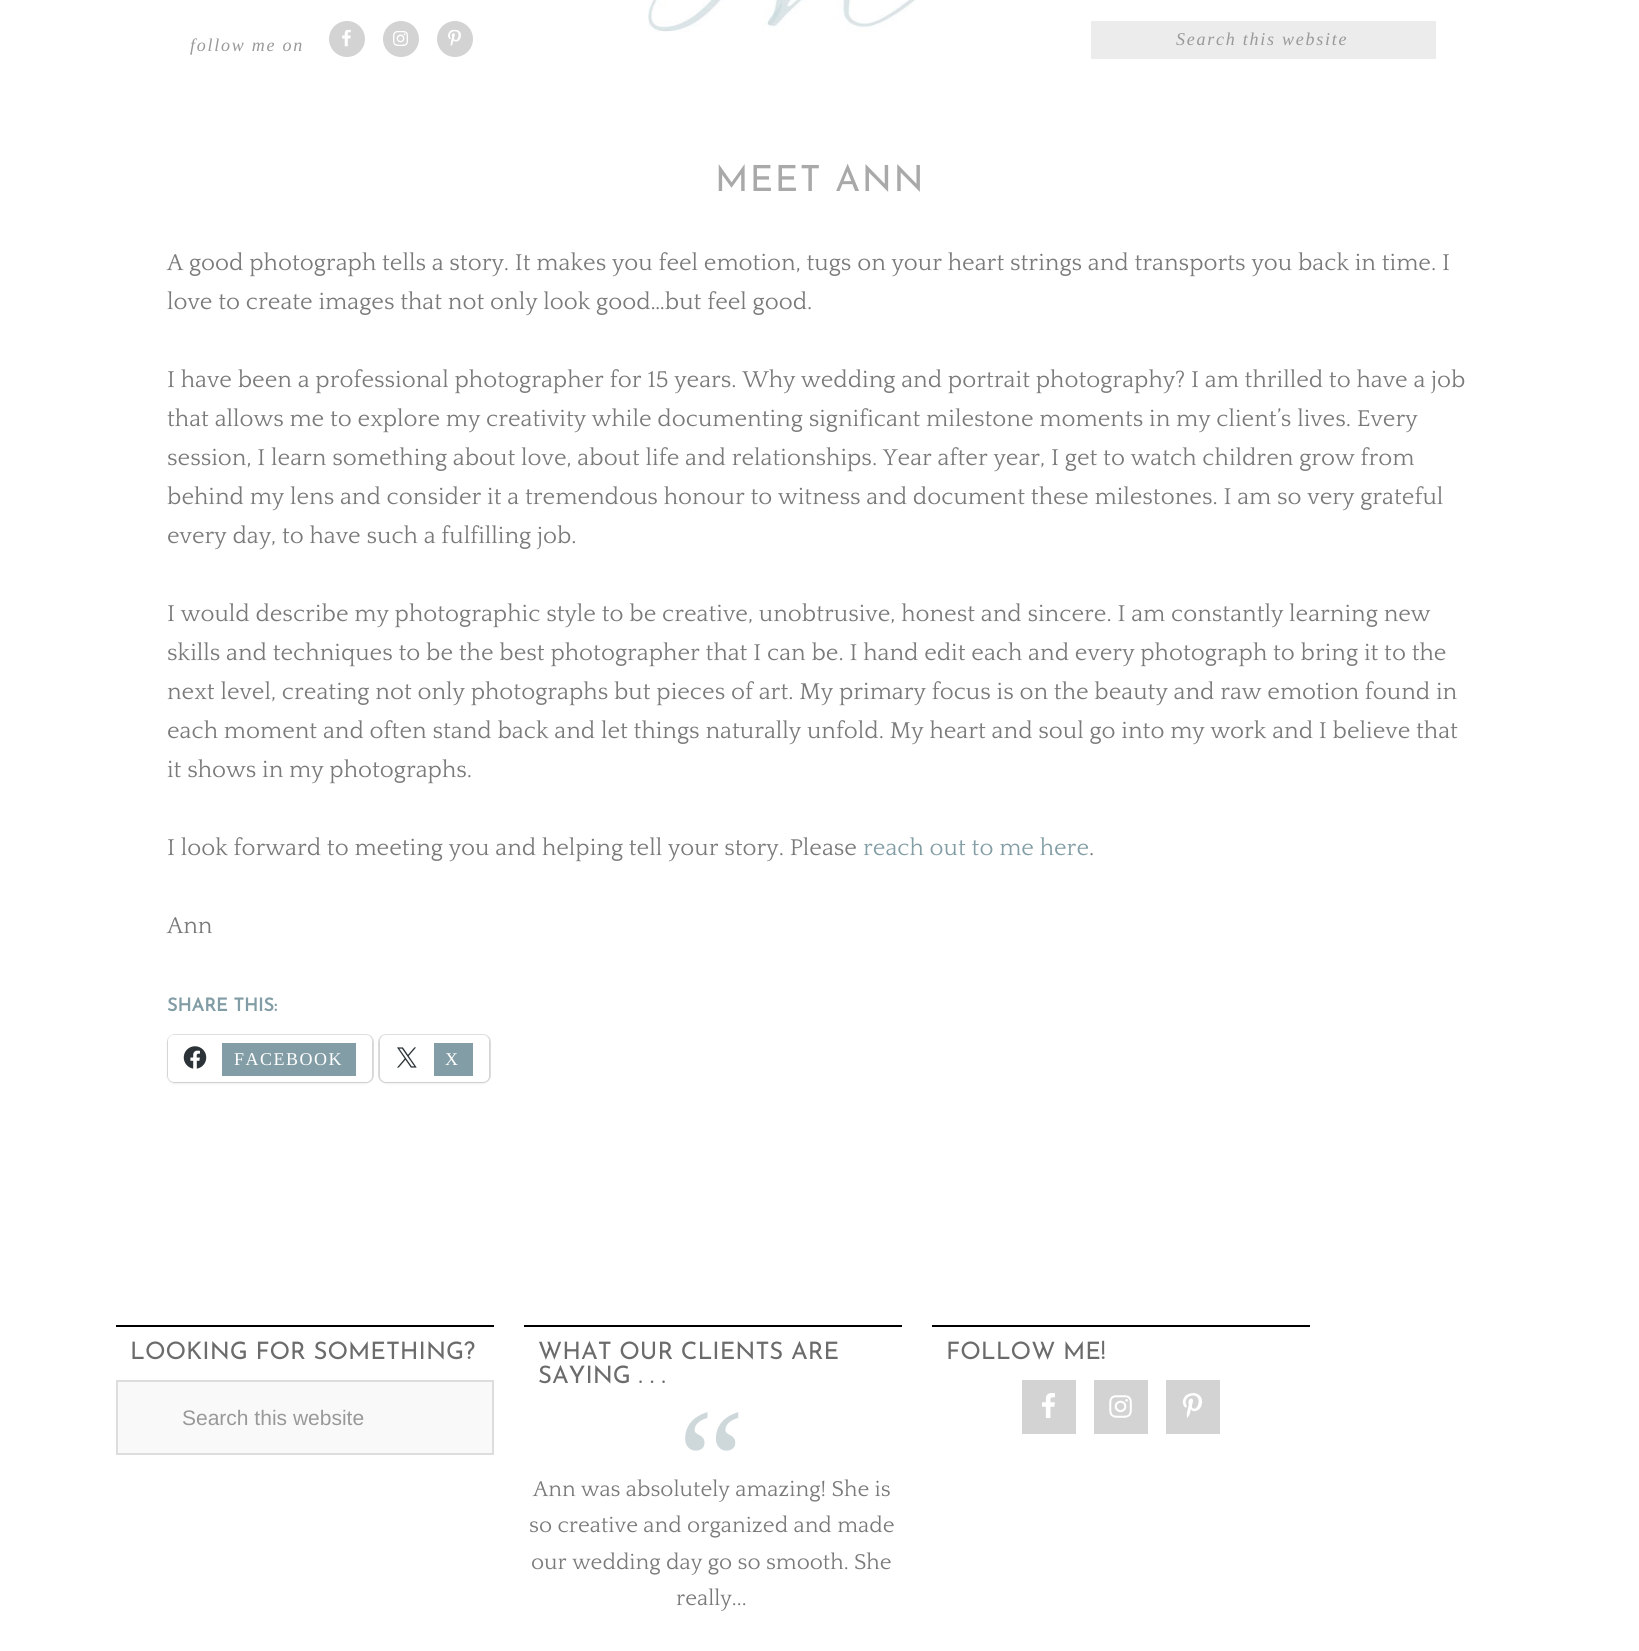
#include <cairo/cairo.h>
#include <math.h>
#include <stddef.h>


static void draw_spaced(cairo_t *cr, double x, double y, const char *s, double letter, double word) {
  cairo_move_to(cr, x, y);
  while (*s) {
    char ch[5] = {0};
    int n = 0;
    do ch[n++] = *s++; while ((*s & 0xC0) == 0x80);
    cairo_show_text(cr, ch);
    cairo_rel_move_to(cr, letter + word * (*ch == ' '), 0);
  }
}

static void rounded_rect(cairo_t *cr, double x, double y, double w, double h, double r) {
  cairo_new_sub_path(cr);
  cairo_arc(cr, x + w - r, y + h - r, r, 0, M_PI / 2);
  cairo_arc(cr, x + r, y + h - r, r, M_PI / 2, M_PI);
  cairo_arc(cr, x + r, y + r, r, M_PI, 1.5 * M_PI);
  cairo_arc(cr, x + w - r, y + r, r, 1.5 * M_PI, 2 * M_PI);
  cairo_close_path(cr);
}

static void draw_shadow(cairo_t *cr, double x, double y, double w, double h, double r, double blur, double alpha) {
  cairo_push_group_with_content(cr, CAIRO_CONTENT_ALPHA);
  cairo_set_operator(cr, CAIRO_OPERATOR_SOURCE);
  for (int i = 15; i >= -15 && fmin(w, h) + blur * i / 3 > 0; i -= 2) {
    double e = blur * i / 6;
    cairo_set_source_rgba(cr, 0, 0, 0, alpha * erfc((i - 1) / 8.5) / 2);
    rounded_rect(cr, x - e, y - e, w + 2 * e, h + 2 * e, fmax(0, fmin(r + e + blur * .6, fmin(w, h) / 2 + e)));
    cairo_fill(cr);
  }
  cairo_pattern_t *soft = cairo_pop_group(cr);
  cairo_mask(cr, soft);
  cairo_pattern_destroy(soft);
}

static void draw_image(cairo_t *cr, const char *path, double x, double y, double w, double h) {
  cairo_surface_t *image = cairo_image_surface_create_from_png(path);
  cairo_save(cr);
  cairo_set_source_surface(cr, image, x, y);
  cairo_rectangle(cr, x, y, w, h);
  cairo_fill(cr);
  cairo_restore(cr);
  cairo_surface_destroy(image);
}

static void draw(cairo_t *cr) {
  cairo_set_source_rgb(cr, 1, 1, 1);
  cairo_paint(cr);
  draw_image(cr, "images/1.png", 648, 0, 268, 32);
  cairo_set_source_rgb(cr, 211 / 255.0, 211 / 255.0, 211 / 255.0);
  cairo_arc(cr, 347, 39, 18, 0, 2 * M_PI);
  cairo_fill(cr);
  draw_image(cr, "images/2.png", 342, 29, 9, 18);
  cairo_arc(cr, 401, 39, 18, 0, 2 * M_PI);
  cairo_fill(cr);
  draw_image(cr, "images/3.png", 393, 31, 15, 15);
  cairo_arc(cr, 455, 39, 18, 0, 2 * M_PI);
  cairo_fill(cr);
  draw_image(cr, "images/4.png", 448, 29, 13, 17);
  cairo_set_source_rgb(cr, 236 / 255.0, 236 / 255.0, 236 / 255.0);
  cairo_rectangle(cr, 1091, 21, 345, 38);
  cairo_fill(cr);
  rounded_rect(cr, 168, 1035, 205, 47, 7);
  cairo_set_source_rgb(cr, 224 / 255.0, 224 / 255.0, 224 / 255.0);
  cairo_stroke(cr);
  cairo_set_source_rgb(cr, 0, 0, 0);
  draw_shadow(cr, 168, 1037, 204, 46, 6, 1.5, 0.12);
  cairo_set_source_rgb(cr, 1, 1, 1);
  rounded_rect(cr, 168, 1035, 204, 47, 6);
  cairo_fill(cr);
  draw_image(cr, "images/5.png", 183, 1046, 24, 23);
  cairo_set_source_rgb(cr, 130 / 255.0, 157 / 255.0, 165 / 255.0);
  cairo_rectangle(cr, 222, 1043, 134, 33);
  cairo_fill(cr);
  rounded_rect(cr, 379, 1035, 111, 47, 7);
  cairo_set_source_rgb(cr, 224 / 255.0, 224 / 255.0, 224 / 255.0);
  cairo_stroke(cr);
  cairo_set_source_rgb(cr, 0, 0, 0);
  draw_shadow(cr, 380, 1037, 109, 46, 6, 1.5, 0.12);
  cairo_set_source_rgb(cr, 1, 1, 1);
  rounded_rect(cr, 380, 1035, 109, 47, 6);
  cairo_fill(cr);
  draw_image(cr, "images/6.png", 397, 1047, 20, 21);
  cairo_set_source_rgb(cr, 130 / 255.0, 157 / 255.0, 165 / 255.0);
  cairo_rectangle(cr, 434, 1043, 39, 33);
  cairo_fill(cr);
  cairo_set_source_rgb(cr, 0, 0, 0);
  cairo_rectangle(cr, 116, 1325, 378, 2);
  cairo_fill(cr);
  cairo_set_source_rgb(cr, 249 / 255.0, 249 / 255.0, 249 / 255.0);
  cairo_rectangle(cr, 117, 1381, 376, 73);
  cairo_fill_preserve(cr);
  cairo_set_source_rgb(cr, 221 / 255.0, 221 / 255.0, 221 / 255.0);
  cairo_stroke(cr);
  cairo_set_source_rgb(cr, 0, 0, 0);
  cairo_rectangle(cr, 524, 1325, 378, 2);
  cairo_fill(cr);
  cairo_rectangle(cr, 932, 1325, 378, 2);
  cairo_fill(cr);
  cairo_set_source_rgb(cr, 211 / 255.0, 211 / 255.0, 211 / 255.0);
  cairo_rectangle(cr, 1022, 1380, 54, 54);
  cairo_fill(cr);
  draw_image(cr, "images/7.png", 1042, 1393, 13, 25);
  cairo_rectangle(cr, 1094, 1380, 54, 54);
  cairo_fill(cr);
  draw_image(cr, "images/8.png", 1109, 1395, 23, 23);
  cairo_rectangle(cr, 1166, 1380, 54, 54);
  cairo_fill(cr);
  draw_image(cr, "images/9.png", 1182, 1393, 21, 25);
  cairo_select_font_face(cr, "Liberation Serif", CAIRO_FONT_SLANT_ITALIC, CAIRO_FONT_WEIGHT_NORMAL);
  cairo_set_font_size(cr, 18);
  cairo_set_source_rgb(cr, 153 / 255.0, 153 / 255.0, 153 / 255.0);
  draw_spaced(cr, 190, 51, "follow me on", 1.75, 0);
  draw_spaced(cr, 1176, 45, "Search this website", 1.75, 0);
  cairo_select_font_face(cr, "Josefin Sans Thin", CAIRO_FONT_SLANT_NORMAL, CAIRO_FONT_WEIGHT_NORMAL);
  cairo_set_font_size(cr, 36);
  cairo_set_source_rgb(cr, 169 / 255.0, 169 / 255.0, 169 / 255.0);
  draw_spaced(cr, 715, 191, "MEET ANN", 1.5, 0);
  cairo_select_font_face(cr, "Quattrocento", CAIRO_FONT_SLANT_NORMAL, CAIRO_FONT_WEIGHT_NORMAL);
  cairo_set_font_size(cr, 24);
  cairo_set_source_rgb(cr, 122 / 255.0, 122 / 255.0, 122 / 255.0);
  cairo_move_to(cr, 167, 270);
  cairo_show_text(cr, "A good photograph tells a story. It makes you feel emotion, tugs on your heart strings and transports you back in time. I");
  cairo_move_to(cr, 167, 309);
  cairo_show_text(cr, "love to create images that not only look good…but feel good.");
  cairo_move_to(cr, 167, 387);
  cairo_show_text(cr, "I have been a professional photographer for 15 years. Why wedding and portrait photography? I am thrilled to have a job");
  cairo_move_to(cr, 167, 426);
  cairo_show_text(cr, "that allows me to explore my creativity while documenting significant milestone moments in my client’s lives. Every");
  cairo_move_to(cr, 167, 465);
  cairo_show_text(cr, "session, I learn something about love, about life and relationships. Year after year, I get to watch children grow from");
  cairo_move_to(cr, 167, 504);
  cairo_show_text(cr, "behind my lens and consider it a tremendous honour to witness and document these milestones. I am so very grateful");
  cairo_move_to(cr, 167, 543);
  cairo_show_text(cr, "every day, to have such a fulfilling job.");
  cairo_move_to(cr, 167, 621);
  cairo_show_text(cr, "I would describe my photographic style to be creative, unobtrusive, honest and sincere. I am constantly learning new");
  cairo_move_to(cr, 167, 660);
  cairo_show_text(cr, "skills and techniques to be the best photographer that I can be. I hand edit each and every photograph to bring it to the");
  cairo_move_to(cr, 167, 699);
  cairo_show_text(cr, "next level, creating not only photographs but pieces of art. My primary focus is on the beauty and raw emotion found in");
  cairo_move_to(cr, 167, 738);
  cairo_show_text(cr, "each moment and often stand back and let things naturally unfold. My heart and soul go into my work and I believe that");
  cairo_move_to(cr, 167, 777);
  cairo_show_text(cr, "it shows in my photographs.");
  cairo_move_to(cr, 167, 855);
  cairo_show_text(cr, "I look forward to meeting you and helping tell your story. Please");
  cairo_set_source_rgb(cr, 130 / 255.0, 157 / 255.0, 165 / 255.0);
  cairo_move_to(cr, 863, 855);
  cairo_show_text(cr, "reach out to me here");
  cairo_set_source_rgb(cr, 122 / 255.0, 122 / 255.0, 122 / 255.0);
  cairo_move_to(cr, 1089, 855);
  cairo_show_text(cr, ".");
  cairo_move_to(cr, 167, 933);
  cairo_show_text(cr, "Ann");
  cairo_select_font_face(cr, "Josefin Sans", CAIRO_FONT_SLANT_NORMAL, CAIRO_FONT_WEIGHT_BOLD);
  cairo_set_font_size(cr, 18);
  cairo_set_source_rgb(cr, 130 / 255.0, 157 / 255.0, 165 / 255.0);
  cairo_move_to(cr, 167, 1011);
  cairo_show_text(cr, "SHARE THIS:");
  cairo_select_font_face(cr, "Liberation Serif", CAIRO_FONT_SLANT_NORMAL, CAIRO_FONT_WEIGHT_NORMAL);
  cairo_set_source_rgb(cr, 1, 1, 1);
  draw_spaced(cr, 234, 1065, "FACEBOOK", 1.5, 0);
  draw_spaced(cr, 445, 1065, "X", 1.5, 0);
  cairo_select_font_face(cr, "Josefin Sans Thin", CAIRO_FONT_SLANT_NORMAL, CAIRO_FONT_WEIGHT_NORMAL);
  cairo_set_font_size(cr, 24);
  cairo_set_source_rgb(cr, 107 / 255.0, 107 / 255.0, 107 / 255.0);
  cairo_move_to(cr, 130, 1359);
  cairo_show_text(cr, "LOOKING FOR SOMETHING?");
  cairo_select_font_face(cr, "Liberation Sans", CAIRO_FONT_SLANT_NORMAL, CAIRO_FONT_WEIGHT_NORMAL);
  cairo_set_font_size(cr, 21);
  cairo_set_source_rgb(cr, 153 / 255.0, 153 / 255.0, 153 / 255.0);
  cairo_move_to(cr, 182, 1425);
  cairo_show_text(cr, "Search this website");
  cairo_select_font_face(cr, "Josefin Sans Thin", CAIRO_FONT_SLANT_NORMAL, CAIRO_FONT_WEIGHT_NORMAL);
  cairo_set_font_size(cr, 24);
  cairo_set_source_rgb(cr, 107 / 255.0, 107 / 255.0, 107 / 255.0);
  cairo_move_to(cr, 538, 1359);
  cairo_show_text(cr, "WHAT OUR CLIENTS ARE");
  cairo_move_to(cr, 538, 1383);
  cairo_show_text(cr, "SAYING . . .");
  cairo_select_font_face(cr, "Liberation Serif", CAIRO_FONT_SLANT_NORMAL, CAIRO_FONT_WEIGHT_NORMAL);
  cairo_set_font_size(cr, 150);
  cairo_set_source_rgb(cr, 206 / 255.0, 216 / 255.0, 219 / 255.0);
  cairo_move_to(cr, 678, 1512);
  cairo_show_text(cr, "“");
  cairo_select_font_face(cr, "Quattrocento", CAIRO_FONT_SLANT_NORMAL, CAIRO_FONT_WEIGHT_NORMAL);
  cairo_set_font_size(cr, 22.5);
  cairo_set_source_rgb(cr, 122 / 255.0, 122 / 255.0, 122 / 255.0);
  cairo_move_to(cr, 533, 1496);
  cairo_show_text(cr, "Ann was absolutely amazing! She is");
  cairo_move_to(cr, 529, 1532);
  cairo_show_text(cr, "so creative and organized and made");
  cairo_move_to(cr, 531, 1569);
  cairo_show_text(cr, "our wedding day go so smooth. She");
  cairo_move_to(cr, 676, 1605);
  cairo_show_text(cr, "really...");
  cairo_select_font_face(cr, "Josefin Sans Thin", CAIRO_FONT_SLANT_NORMAL, CAIRO_FONT_WEIGHT_NORMAL);
  cairo_set_font_size(cr, 24);
  cairo_set_source_rgb(cr, 107 / 255.0, 107 / 255.0, 107 / 255.0);
  cairo_move_to(cr, 946, 1359);
  cairo_show_text(cr, "FOLLOW ME!");
}

int main(void) {
  cairo_surface_t *surface = cairo_image_surface_create(CAIRO_FORMAT_RGB24, 1639, 1651);
  cairo_t *cr = cairo_create(surface);
  cairo_font_options_t *options = cairo_font_options_create();
  cairo_font_options_set_hint_metrics(options, CAIRO_HINT_METRICS_OFF);
  cairo_font_options_set_hint_style(options, CAIRO_HINT_STYLE_NONE);
  cairo_set_font_options(cr, options);
  cairo_set_miter_limit(cr, 4);
  draw(cr);
  cairo_surface_write_to_png(surface, "out.png");
  cairo_font_options_destroy(options);
  cairo_destroy(cr);
  cairo_surface_destroy(surface);
  return 0;
}
